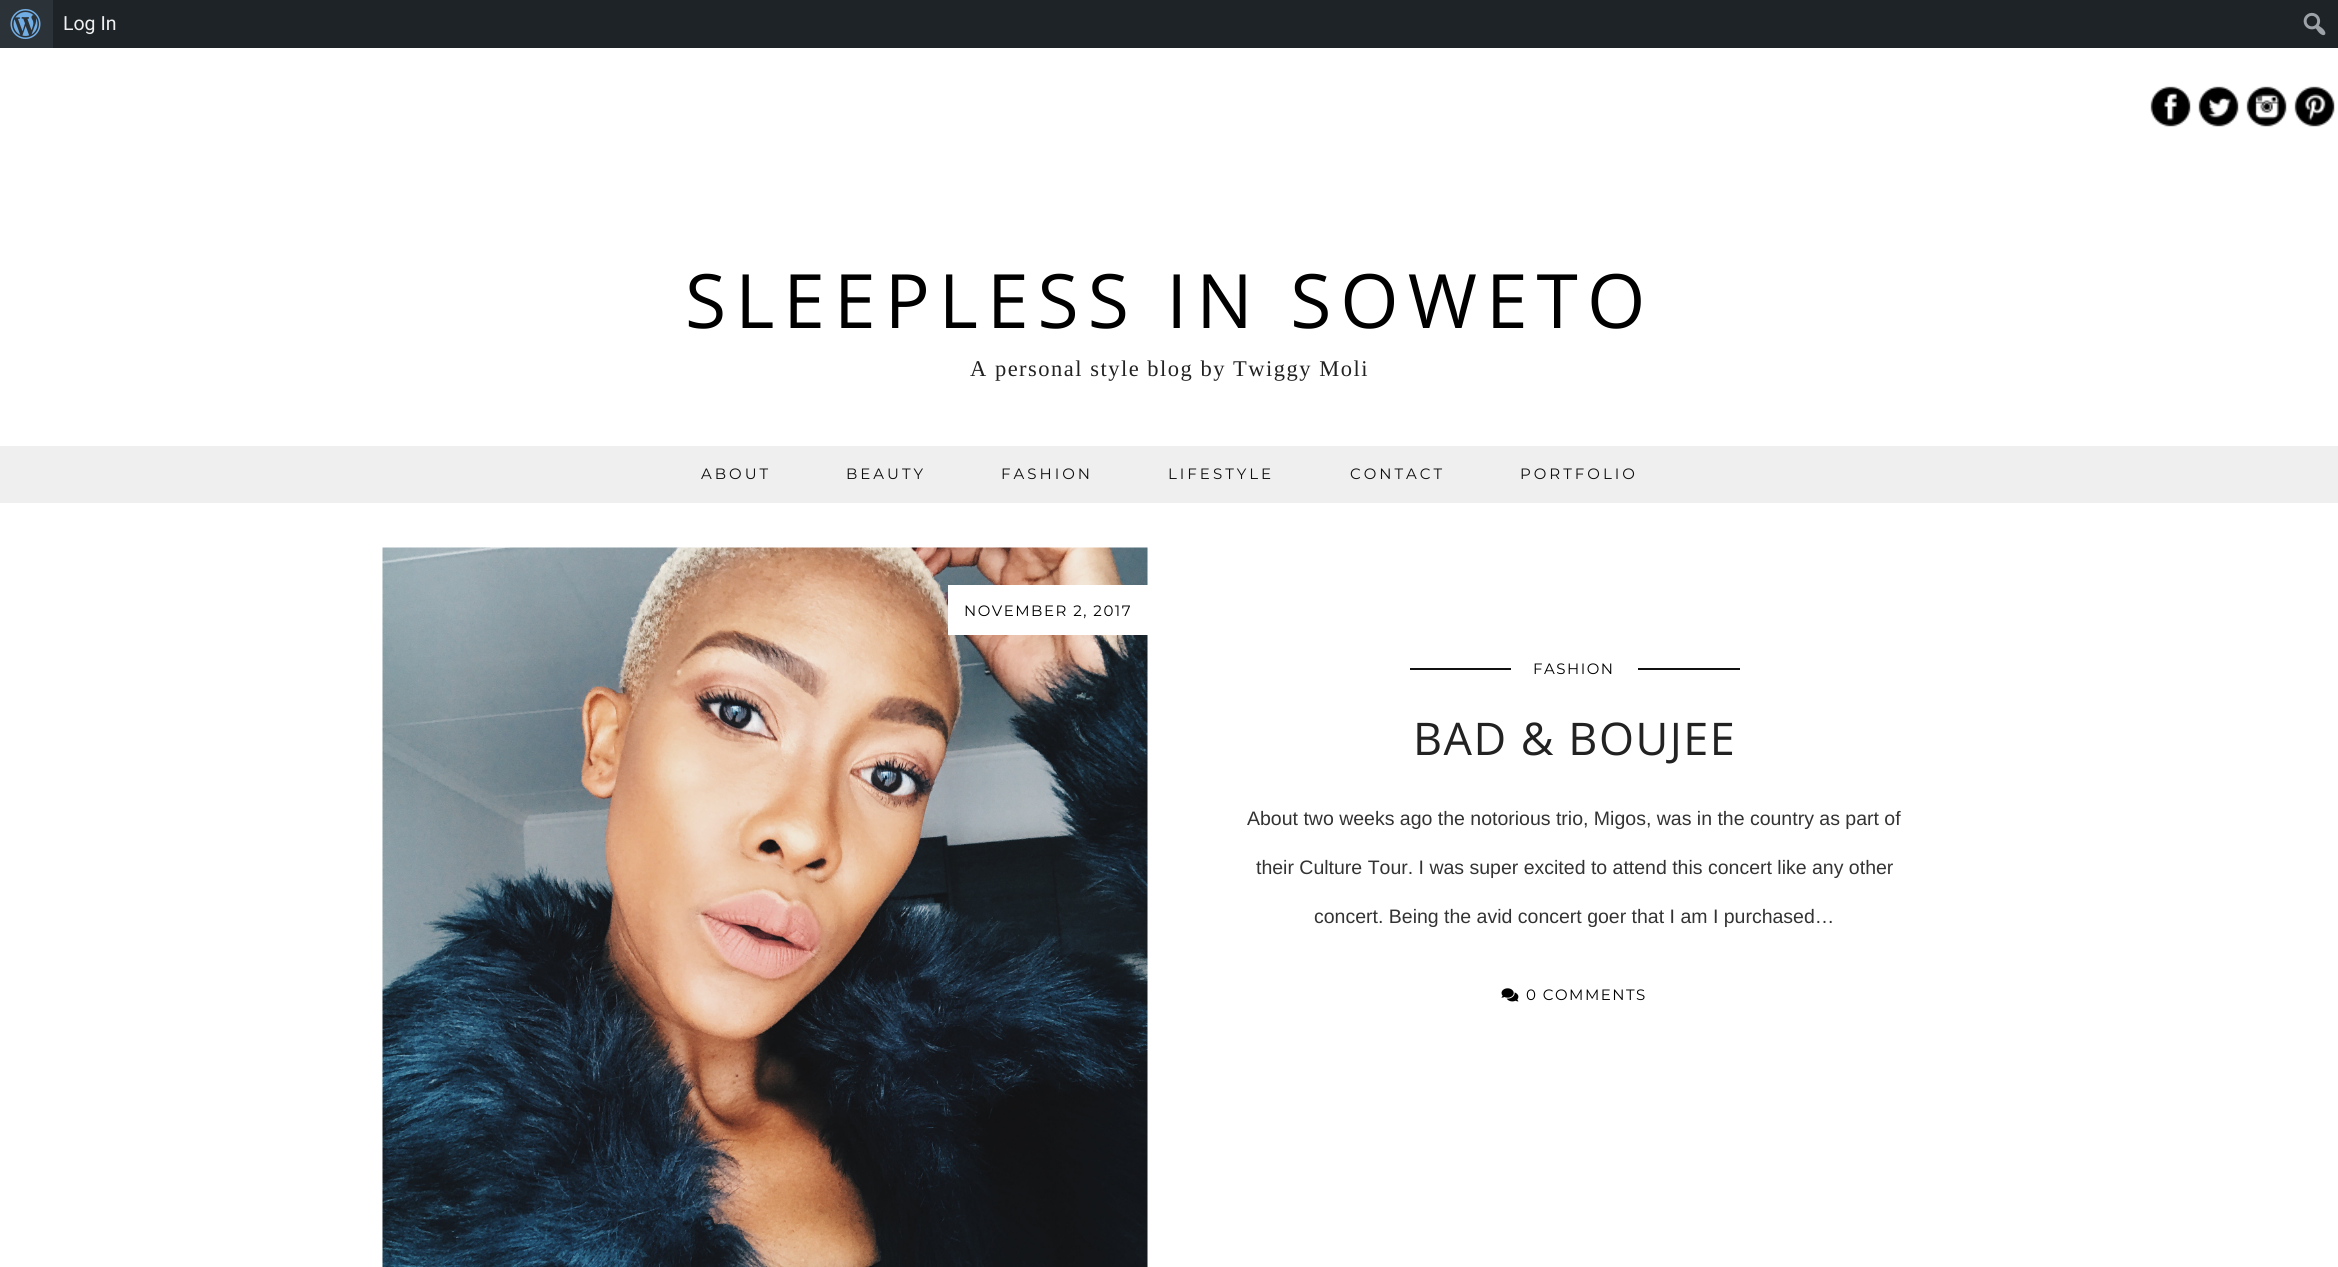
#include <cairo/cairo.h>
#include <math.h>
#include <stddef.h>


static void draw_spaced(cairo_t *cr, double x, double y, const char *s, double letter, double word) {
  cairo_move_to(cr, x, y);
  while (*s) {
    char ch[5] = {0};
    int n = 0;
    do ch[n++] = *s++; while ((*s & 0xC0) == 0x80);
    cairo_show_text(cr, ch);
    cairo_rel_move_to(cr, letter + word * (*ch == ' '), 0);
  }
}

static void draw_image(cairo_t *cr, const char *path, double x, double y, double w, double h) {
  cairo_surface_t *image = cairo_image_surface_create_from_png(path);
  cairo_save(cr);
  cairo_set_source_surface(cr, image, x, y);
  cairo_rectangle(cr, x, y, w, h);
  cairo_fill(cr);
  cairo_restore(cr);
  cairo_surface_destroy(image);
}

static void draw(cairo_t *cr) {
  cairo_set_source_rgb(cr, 1, 1, 1);
  cairo_paint(cr);
  cairo_set_source_rgb(cr, 29 / 255.0, 35 / 255.0, 39 / 255.0);
  cairo_rectangle(cr, 53, 0, 2285, 48);
  cairo_fill(cr);
  cairo_set_source_rgb(cr, 44 / 255.0, 51 / 255.0, 56 / 255.0);
  cairo_rectangle(cr, 0, 0, 53, 48);
  cairo_fill(cr);
  draw_image(cr, "images/1.png", 10, 9, 31, 30);
  draw_image(cr, "images/2.png", 2303, 12, 23, 24);
  draw_image(cr, "images/3.png", 2150, 86, 41, 41);
  draw_image(cr, "images/4.png", 2198, 86, 41, 41);
  draw_image(cr, "images/5.png", 2246, 86, 41, 41);
  draw_image(cr, "images/6.png", 2294, 86, 41, 41);
  cairo_set_source_rgb(cr, 239 / 255.0, 239 / 255.0, 239 / 255.0);
  cairo_rectangle(cr, 0, 446, 2338, 57);
  cairo_fill(cr);
  draw_image(cr, "images/7.png", 382, 547, 766, 720);
  cairo_set_source_rgb(cr, 1, 1, 1);
  cairo_rectangle(cr, 948, 585, 200, 50);
  cairo_fill(cr);
  cairo_set_source_rgb(cr, 17 / 255.0, 17 / 255.0, 17 / 255.0);
  cairo_rectangle(cr, 1410, 668, 330, 2);
  cairo_fill(cr);
  cairo_set_source_rgb(cr, 1, 1, 1);
  cairo_rectangle(cr, 1511, 668, 127, 2);
  cairo_fill(cr);
  draw_image(cr, "images/8.png", 1501, 988, 18, 14);
  cairo_select_font_face(cr, "Roboto", CAIRO_FONT_SLANT_NORMAL, CAIRO_FONT_WEIGHT_NORMAL);
  cairo_set_font_size(cr, 19.5);
  cairo_set_source_rgb(cr, 240 / 255.0, 240 / 255.0, 241 / 255.0);
  cairo_move_to(cr, 63, 30);
  cairo_show_text(cr, "Log In");
  cairo_select_font_face(cr, "Open Sans", CAIRO_FONT_SLANT_NORMAL, CAIRO_FONT_WEIGHT_NORMAL);
  cairo_set_font_size(cr, 75);
  cairo_set_source_rgb(cr, 0, 0, 0);
  draw_spaced(cr, 685, 328, "SLEEPLESS IN SOWETO", 9, 0);
  cairo_select_font_face(cr, "Liberation Serif", CAIRO_FONT_SLANT_NORMAL, CAIRO_FONT_WEIGHT_NORMAL);
  cairo_set_font_size(cr, 22.5);
  cairo_set_source_rgb(cr, 34 / 255.0, 34 / 255.0, 34 / 255.0);
  draw_spaced(cr, 970, 376, "A personal style blog by Twiggy Moli", 1.5, 0);
  cairo_select_font_face(cr, "Montserrat Thin", CAIRO_FONT_SLANT_NORMAL, CAIRO_FONT_WEIGHT_NORMAL);
  cairo_set_font_size(cr, 15);
  cairo_set_source_rgb(cr, 15 / 255.0, 15 / 255.0, 15 / 255.0);
  draw_spaced(cr, 701, 479, "ABOUT", 3, 0);
  draw_spaced(cr, 846, 479, "BEAUTY", 3, 0);
  draw_spaced(cr, 1001, 479, "FASHION", 3, 0);
  draw_spaced(cr, 1168, 479, "LIFESTYLE", 3, 0);
  draw_spaced(cr, 1350, 479, "CONTACT", 3, 0);
  draw_spaced(cr, 1520, 479, "PORTFOLIO", 3, 0);
  cairo_set_source_rgb(cr, 0, 0, 0);
  draw_spaced(cr, 964, 616, "NOVEMBER 2, 2017", 1.5, 0);
  draw_spaced(cr, 1533, 674, "FASHION", 1.5, 0);
  cairo_select_font_face(cr, "Open Sans", CAIRO_FONT_SLANT_NORMAL, CAIRO_FONT_WEIGHT_NORMAL);
  cairo_set_font_size(cr, 45);
  cairo_set_source_rgb(cr, 34 / 255.0, 34 / 255.0, 34 / 255.0);
  draw_spaced(cr, 1413, 755, "BAD & BOUJEE", 1.5, 0);
  cairo_select_font_face(cr, "Liberation Sans", CAIRO_FONT_SLANT_NORMAL, CAIRO_FONT_WEIGHT_NORMAL);
  cairo_set_font_size(cr, 19.5);
  cairo_set_source_rgb(cr, 51 / 255.0, 51 / 255.0, 51 / 255.0);
  cairo_move_to(cr, 1247, 825);
  cairo_show_text(cr, "About two weeks ago the notorious trio, Migos, was in the country as part of");
  cairo_move_to(cr, 1256, 874);
  cairo_show_text(cr, "their Culture Tour. I was super excited to attend this concert like any other");
  cairo_move_to(cr, 1314, 923);
  cairo_show_text(cr, "concert. Being the avid concert goer that I am I purchased…");
  cairo_select_font_face(cr, "Montserrat Thin", CAIRO_FONT_SLANT_NORMAL, CAIRO_FONT_WEIGHT_NORMAL);
  cairo_set_font_size(cr, 15);
  cairo_set_source_rgb(cr, 0, 0, 0);
  draw_spaced(cr, 1526, 1000, "0 COMMENTS", 1.5, 0);
}

int main(void) {
  cairo_surface_t *surface = cairo_image_surface_create(CAIRO_FORMAT_RGB24, 2338, 1267);
  cairo_t *cr = cairo_create(surface);
  cairo_font_options_t *options = cairo_font_options_create();
  cairo_font_options_set_hint_metrics(options, CAIRO_HINT_METRICS_OFF);
  cairo_font_options_set_hint_style(options, CAIRO_HINT_STYLE_NONE);
  cairo_set_font_options(cr, options);
  cairo_set_miter_limit(cr, 4);
  draw(cr);
  cairo_surface_write_to_png(surface, "out.png");
  cairo_font_options_destroy(options);
  cairo_destroy(cr);
  cairo_surface_destroy(surface);
  return 0;
}
